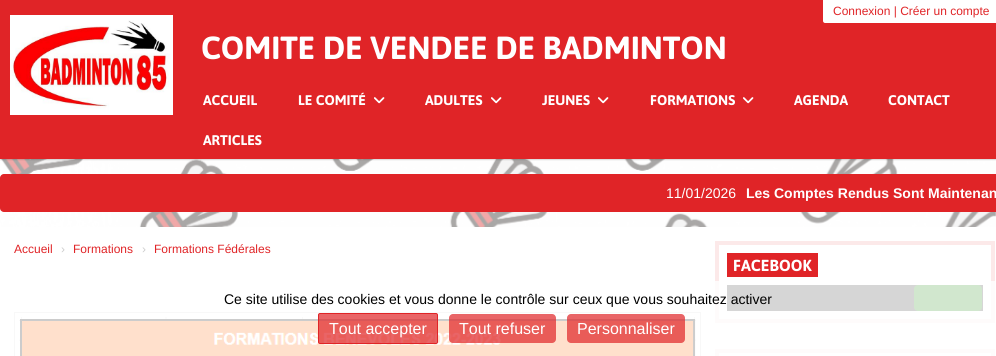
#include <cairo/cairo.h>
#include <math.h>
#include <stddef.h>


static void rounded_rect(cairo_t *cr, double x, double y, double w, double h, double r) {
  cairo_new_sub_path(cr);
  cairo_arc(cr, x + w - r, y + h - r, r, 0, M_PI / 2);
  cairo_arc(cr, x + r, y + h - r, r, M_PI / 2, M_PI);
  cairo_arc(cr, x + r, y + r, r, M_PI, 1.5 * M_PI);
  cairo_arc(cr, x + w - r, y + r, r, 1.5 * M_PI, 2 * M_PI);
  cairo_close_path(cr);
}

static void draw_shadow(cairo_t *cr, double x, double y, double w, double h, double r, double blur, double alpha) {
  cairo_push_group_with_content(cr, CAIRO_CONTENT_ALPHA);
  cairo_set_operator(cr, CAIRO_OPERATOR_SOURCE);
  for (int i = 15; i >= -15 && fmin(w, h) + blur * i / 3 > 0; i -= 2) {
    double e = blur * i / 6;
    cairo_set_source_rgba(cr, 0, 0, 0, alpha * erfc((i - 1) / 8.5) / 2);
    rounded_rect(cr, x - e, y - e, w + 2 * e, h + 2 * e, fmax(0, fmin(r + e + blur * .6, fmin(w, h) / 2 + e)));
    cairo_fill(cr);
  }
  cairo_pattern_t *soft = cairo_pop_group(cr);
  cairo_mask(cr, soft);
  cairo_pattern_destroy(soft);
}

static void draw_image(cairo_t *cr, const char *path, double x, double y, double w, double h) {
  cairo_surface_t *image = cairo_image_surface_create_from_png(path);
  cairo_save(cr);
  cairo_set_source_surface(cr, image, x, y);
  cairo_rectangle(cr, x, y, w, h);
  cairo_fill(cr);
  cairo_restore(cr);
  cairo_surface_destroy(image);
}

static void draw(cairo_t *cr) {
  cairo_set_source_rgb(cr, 1, 1, 1);
  cairo_paint(cr);
  draw_image(cr, "images/1.png", 0, 159, 996, 70);
  cairo_set_source_rgb(cr, 0, 0, 0);
  draw_shadow(cr, 0, 1, 996, 159, 0, 0.5, 0.15);
  cairo_set_source_rgb(cr, 224 / 255.0, 36 / 255.0, 39 / 255.0);
  cairo_rectangle(cr, 0, 0, 996, 159);
  cairo_fill(cr);
  cairo_set_source_rgb(cr, 1, 1, 1);
  cairo_new_path(cr);
  cairo_move_to(cr, 823, 0);
  cairo_line_to(cr, 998, 0);
  cairo_line_to(cr, 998, 21);
  cairo_curve_to(cr, 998, 22, 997, 23, 996, 23);
  cairo_line_to(cr, 825, 23);
  cairo_curve_to(cr, 824, 23, 823, 22, 823, 21);
  cairo_close_path(cr);
  cairo_fill(cr);
  draw_image(cr, "images/2.png", 10, 15, 163, 100);
  draw_image(cr, "images/3.png", 374, 97, 11, 7);
  draw_image(cr, "images/3.png", 491, 97, 11, 7);
  draw_image(cr, "images/3.png", 598, 97, 11, 7);
  draw_image(cr, "images/3.png", 743, 97, 11, 7);
  cairo_set_source_rgb(cr, 224 / 255.0, 36 / 255.0, 39 / 255.0);
  rounded_rect(cr, 0, 174, 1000, 38, 4);
  cairo_fill(cr);
  cairo_set_source_rgb(cr, 1, 1, 1);
  rounded_rect(cr, 0, 227, 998, 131, 2);
  cairo_fill(cr);
  cairo_rectangle(cr, 14.5, 312.5, 686, 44);
  cairo_set_source_rgb(cr, 221 / 255.0, 221 / 255.0, 221 / 255.0);
  cairo_set_line_width(cr, 1);
  cairo_stroke(cr);
  draw_image(cr, "images/4.png", 19, 317, 677, 39);
  cairo_rectangle(cr, 717, 243, 276, 78);
  cairo_set_source_rgb(cr, 252 / 255.0, 233 / 255.0, 233 / 255.0);
  cairo_set_line_width(cr, 4);
  cairo_stroke(cr);
  cairo_set_source_rgb(cr, 224 / 255.0, 36 / 255.0, 39 / 255.0);
  cairo_rectangle(cr, 727, 253, 91, 24);
  cairo_fill(cr);
  cairo_set_source_rgb(cr, 51 / 255.0, 51 / 255.0, 51 / 255.0);
  cairo_rectangle(cr, 727, 285, 256, 26);
  cairo_fill(cr);
  cairo_set_source_rgb(cr, 27 / 255.0, 135 / 255.0, 11 / 255.0);
  rounded_rect(cr, 914, 285, 68, 26, 4);
  cairo_fill(cr);
  cairo_rectangle(cr, 717, 351, 276, 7);
  cairo_set_source_rgb(cr, 252 / 255.0, 233 / 255.0, 233 / 255.0);
  cairo_stroke(cr);
  cairo_set_source_rgba(cr, 1, 1, 1, 0.8);
  cairo_rectangle(cr, 14, 281, 981, 75);
  cairo_fill(cr);
  cairo_set_source_rgba(cr, 224 / 255.0, 36 / 255.0, 39 / 255.0, 0.7);
  rounded_rect(cr, 318.5, 313.5, 119, 30, 1.5);
  cairo_fill_preserve(cr);
  cairo_set_source_rgb(cr, 224 / 255.0, 36 / 255.0, 39 / 255.0);
  cairo_set_line_width(cr, 1);
  cairo_stroke(cr);
  cairo_set_source_rgba(cr, 224 / 255.0, 36 / 255.0, 39 / 255.0, 0.7);
  rounded_rect(cr, 449, 314, 107, 29, 4);
  cairo_fill(cr);
  rounded_rect(cr, 567, 314, 118, 29, 4);
  cairo_fill(cr);
  cairo_select_font_face(cr, "Liberation Sans", CAIRO_FONT_SLANT_NORMAL, CAIRO_FONT_WEIGHT_NORMAL);
  cairo_set_font_size(cr, 12);
  cairo_set_source_rgb(cr, 224 / 255.0, 36 / 255.0, 39 / 255.0);
  cairo_move_to(cr, 833, 15);
  cairo_show_text(cr, "Connexion | Créer un compte");
  cairo_select_font_face(cr, "Asap", CAIRO_FONT_SLANT_NORMAL, CAIRO_FONT_WEIGHT_BOLD);
  cairo_set_font_size(cr, 32);
  cairo_set_source_rgb(cr, 1, 1, 1);
  cairo_move_to(cr, 201, 59);
  cairo_show_text(cr, "COMITE DE VENDEE DE BADMINTON");
  cairo_set_font_size(cr, 14);
  cairo_move_to(cr, 203, 105);
  cairo_show_text(cr, "ACCUEIL");
  cairo_move_to(cr, 298, 105);
  cairo_show_text(cr, "LE COMITÉ");
  cairo_move_to(cr, 425, 105);
  cairo_show_text(cr, "ADULTES");
  cairo_move_to(cr, 542, 105);
  cairo_show_text(cr, "JEUNES");
  cairo_move_to(cr, 650, 105);
  cairo_show_text(cr, "FORMATIONS");
  cairo_move_to(cr, 794, 105);
  cairo_show_text(cr, "AGENDA");
  cairo_move_to(cr, 888, 105);
  cairo_show_text(cr, "CONTACT");
  cairo_move_to(cr, 203, 145);
  cairo_show_text(cr, "ARTICLES");
  cairo_select_font_face(cr, "Liberation Sans", CAIRO_FONT_SLANT_NORMAL, CAIRO_FONT_WEIGHT_NORMAL);
  cairo_move_to(cr, 666, 198);
  cairo_show_text(cr, "11/01/2026");
  cairo_select_font_face(cr, "Liberation Sans", CAIRO_FONT_SLANT_NORMAL, CAIRO_FONT_WEIGHT_BOLD);
  cairo_move_to(cr, 746, 198);
  cairo_show_text(cr, "Les Comptes Rendus Sont Maintenan");
  cairo_select_font_face(cr, "Liberation Sans", CAIRO_FONT_SLANT_NORMAL, CAIRO_FONT_WEIGHT_NORMAL);
  cairo_set_font_size(cr, 12);
  cairo_set_source_rgb(cr, 224 / 255.0, 36 / 255.0, 39 / 255.0);
  cairo_move_to(cr, 14, 253);
  cairo_show_text(cr, "Accueil");
  cairo_set_source_rgb(cr, 204 / 255.0, 204 / 255.0, 204 / 255.0);
  cairo_move_to(cr, 61, 253);
  cairo_show_text(cr, "›");
  cairo_set_source_rgb(cr, 224 / 255.0, 36 / 255.0, 39 / 255.0);
  cairo_move_to(cr, 73, 253);
  cairo_show_text(cr, "Formations");
  cairo_set_source_rgb(cr, 204 / 255.0, 204 / 255.0, 204 / 255.0);
  cairo_move_to(cr, 142, 253);
  cairo_show_text(cr, "›");
  cairo_set_source_rgb(cr, 224 / 255.0, 36 / 255.0, 39 / 255.0);
  cairo_move_to(cr, 154, 253);
  cairo_show_text(cr, "Formations Fédérales");
  cairo_select_font_face(cr, "Asap", CAIRO_FONT_SLANT_NORMAL, CAIRO_FONT_WEIGHT_BOLD);
  cairo_set_font_size(cr, 16);
  cairo_set_source_rgb(cr, 1, 1, 1);
  cairo_move_to(cr, 733, 271);
  cairo_show_text(cr, "FACEBOOK");
  cairo_select_font_face(cr, "Liberation Sans", CAIRO_FONT_SLANT_NORMAL, CAIRO_FONT_WEIGHT_NORMAL);
  cairo_set_font_size(cr, 14);
  cairo_set_source_rgb(cr, 0, 0, 0);
  cairo_move_to(cr, 224, 304);
  cairo_show_text(cr, "Ce site utilise des cookies et vous donne le contrôle sur ceux que vous souhaitez activer");
  cairo_set_font_size(cr, 16);
  cairo_set_source_rgb(cr, 1, 1, 1);
  cairo_move_to(cr, 329, 334);
  cairo_show_text(cr, "Tout accepter");
  cairo_move_to(cr, 459, 334);
  cairo_show_text(cr, "Tout refuser");
  cairo_move_to(cr, 577, 334);
  cairo_show_text(cr, "Personnaliser");
}

int main(void) {
  cairo_surface_t *surface = cairo_image_surface_create(CAIRO_FORMAT_RGB24, 996, 356);
  cairo_t *cr = cairo_create(surface);
  cairo_font_options_t *options = cairo_font_options_create();
  cairo_font_options_set_hint_metrics(options, CAIRO_HINT_METRICS_OFF);
  cairo_font_options_set_hint_style(options, CAIRO_HINT_STYLE_NONE);
  cairo_set_font_options(cr, options);
  cairo_set_miter_limit(cr, 4);
  draw(cr);
  cairo_surface_write_to_png(surface, "out.png");
  cairo_font_options_destroy(options);
  cairo_destroy(cr);
  cairo_surface_destroy(surface);
  return 0;
}
